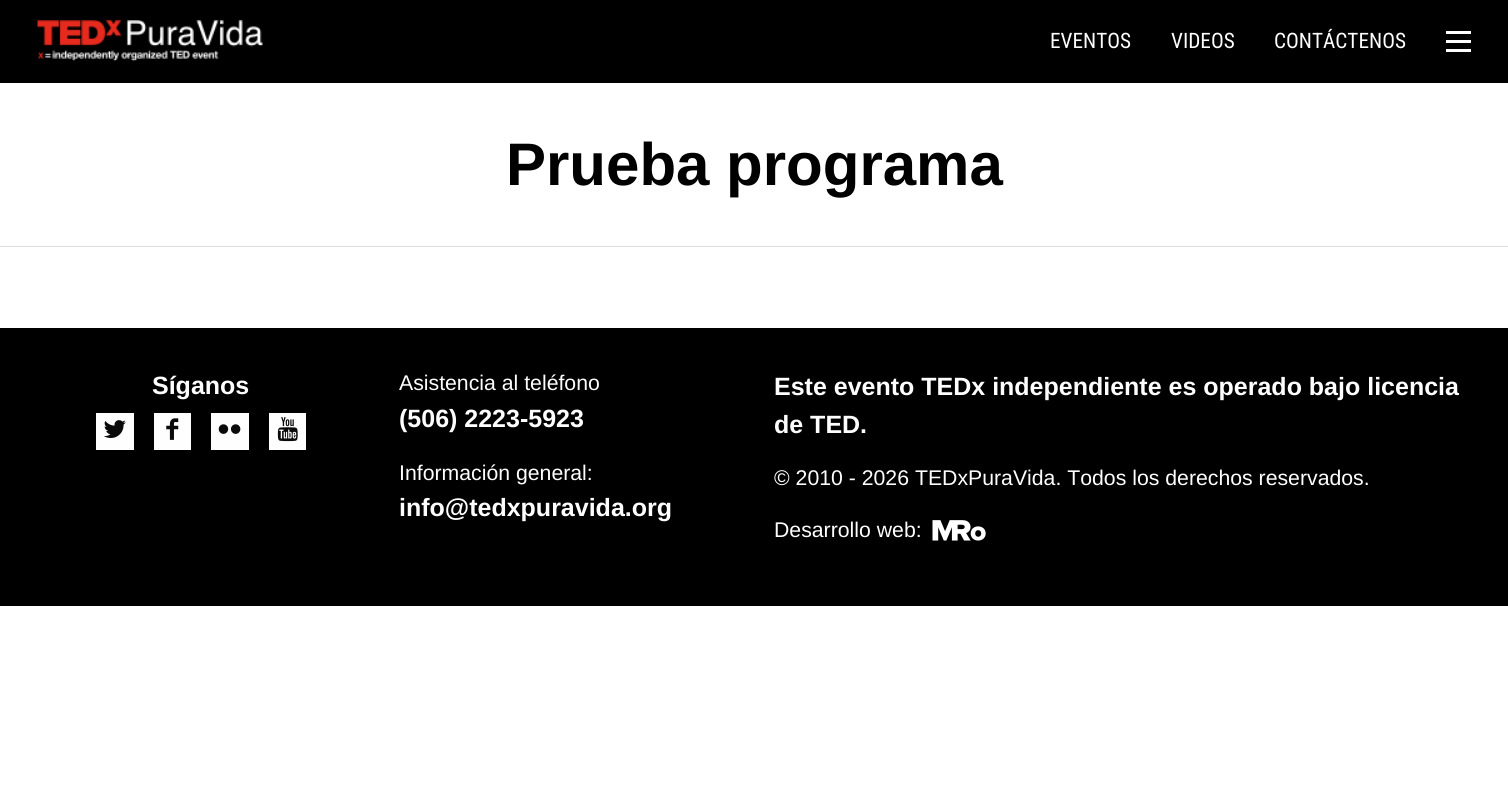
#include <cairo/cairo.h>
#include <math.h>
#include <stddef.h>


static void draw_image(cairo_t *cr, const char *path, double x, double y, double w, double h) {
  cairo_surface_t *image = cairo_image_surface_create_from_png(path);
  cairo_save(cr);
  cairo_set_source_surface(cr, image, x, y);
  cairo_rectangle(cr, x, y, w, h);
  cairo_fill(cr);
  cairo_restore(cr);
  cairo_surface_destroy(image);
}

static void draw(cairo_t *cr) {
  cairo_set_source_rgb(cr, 1, 1, 1);
  cairo_paint(cr);
  cairo_set_source_rgb(cr, 0, 0, 0);
  cairo_rectangle(cr, 0, 0, 1508, 83);
  cairo_fill(cr);
  draw_image(cr, "images/1.png", 37, 20, 226, 42);
  cairo_set_source_rgb(cr, 254 / 255.0, 254 / 255.0, 254 / 255.0);
  cairo_rectangle(cr, 1446, 49, 25, 3);
  cairo_fill(cr);
  cairo_rectangle(cr, 1446, 40, 25, 3);
  cairo_fill(cr);
  cairo_rectangle(cr, 1446, 31, 25, 3);
  cairo_fill(cr);
  cairo_set_source_rgb(cr, 221 / 255.0, 221 / 255.0, 221 / 255.0);
  cairo_rectangle(cr, 0, 246, 1508, 1);
  cairo_fill(cr);
  cairo_set_source_rgb(cr, 0, 0, 0);
  cairo_rectangle(cr, 0, 328, 1508, 278);
  cairo_fill(cr);
  cairo_set_source_rgb(cr, 254 / 255.0, 254 / 255.0, 254 / 255.0);
  cairo_rectangle(cr, 96, 413, 38, 37);
  cairo_fill(cr);
  draw_image(cr, "images/2.png", 104, 420, 22, 18);
  cairo_rectangle(cr, 154, 413, 37, 37);
  cairo_fill(cr);
  draw_image(cr, "images/3.png", 166, 418, 13, 22);
  cairo_rectangle(cr, 211, 413, 38, 37);
  cairo_fill(cr);
  draw_image(cr, "images/4.png", 218, 424, 23, 10);
  cairo_rectangle(cr, 269, 413, 37, 37);
  cairo_fill(cr);
  draw_image(cr, "images/5.png", 277, 417, 21, 25);
  draw_image(cr, "images/6.png", 932, 520, 54, 21);
  cairo_select_font_face(cr, "Roboto Condensed", CAIRO_FONT_SLANT_NORMAL, CAIRO_FONT_WEIGHT_NORMAL);
  cairo_set_font_size(cr, 21.25);
  cairo_move_to(cr, 1050, 48);
  cairo_show_text(cr, "EVENTOS");
  cairo_move_to(cr, 1171, 48);
  cairo_show_text(cr, "VIDEOS");
  cairo_move_to(cr, 1274, 48);
  cairo_show_text(cr, "CONTÁCTENOS");
  cairo_select_font_face(cr, "Liberation Sans", CAIRO_FONT_SLANT_NORMAL, CAIRO_FONT_WEIGHT_BOLD);
  cairo_set_font_size(cr, 60);
  cairo_set_source_rgb(cr, 0, 0, 0);
  cairo_move_to(cr, 506, 185);
  cairo_show_text(cr, "Prueba programa");
  cairo_set_font_size(cr, 25);
  cairo_set_source_rgb(cr, 254 / 255.0, 254 / 255.0, 254 / 255.0);
  cairo_move_to(cr, 152, 394);
  cairo_show_text(cr, "Síganos");
  cairo_select_font_face(cr, "Liberation Sans", CAIRO_FONT_SLANT_NORMAL, CAIRO_FONT_WEIGHT_NORMAL);
  cairo_set_font_size(cr, 21.25);
  cairo_move_to(cr, 399, 390);
  cairo_show_text(cr, "Asistencia al teléfono");
  cairo_select_font_face(cr, "Liberation Sans", CAIRO_FONT_SLANT_NORMAL, CAIRO_FONT_WEIGHT_BOLD);
  cairo_set_font_size(cr, 25);
  cairo_move_to(cr, 399, 427);
  cairo_show_text(cr, "(506) 2223-5923");
  cairo_select_font_face(cr, "Liberation Sans", CAIRO_FONT_SLANT_NORMAL, CAIRO_FONT_WEIGHT_NORMAL);
  cairo_set_font_size(cr, 21.25);
  cairo_move_to(cr, 399, 480);
  cairo_show_text(cr, "Información general:");
  cairo_select_font_face(cr, "Liberation Sans", CAIRO_FONT_SLANT_NORMAL, CAIRO_FONT_WEIGHT_BOLD);
  cairo_set_font_size(cr, 25);
  cairo_move_to(cr, 399, 516);
  cairo_show_text(cr, "info@tedxpuravida.org");
  cairo_move_to(cr, 774, 395);
  cairo_show_text(cr, "Este evento TEDx independiente es operado bajo licencia");
  cairo_move_to(cr, 774, 433);
  cairo_show_text(cr, "de TED.");
  cairo_select_font_face(cr, "Liberation Sans", CAIRO_FONT_SLANT_NORMAL, CAIRO_FONT_WEIGHT_NORMAL);
  cairo_set_font_size(cr, 21.25);
  cairo_move_to(cr, 774, 485);
  cairo_show_text(cr, "© 2010 - 2026 TEDxPuraVida. Todos los derechos reservados.");
  cairo_move_to(cr, 774, 537);
  cairo_show_text(cr, "Desarrollo web:");
}

int main(void) {
  cairo_surface_t *surface = cairo_image_surface_create(CAIRO_FORMAT_RGB24, 1508, 788);
  cairo_t *cr = cairo_create(surface);
  cairo_font_options_t *options = cairo_font_options_create();
  cairo_font_options_set_hint_metrics(options, CAIRO_HINT_METRICS_OFF);
  cairo_font_options_set_hint_style(options, CAIRO_HINT_STYLE_NONE);
  cairo_set_font_options(cr, options);
  cairo_set_miter_limit(cr, 4);
  draw(cr);
  cairo_surface_write_to_png(surface, "out.png");
  cairo_font_options_destroy(options);
  cairo_destroy(cr);
  cairo_surface_destroy(surface);
  return 0;
}
